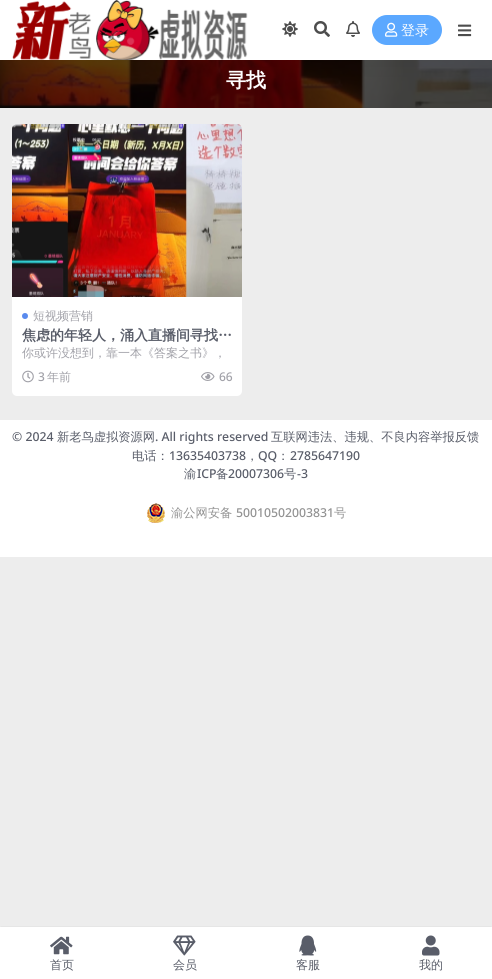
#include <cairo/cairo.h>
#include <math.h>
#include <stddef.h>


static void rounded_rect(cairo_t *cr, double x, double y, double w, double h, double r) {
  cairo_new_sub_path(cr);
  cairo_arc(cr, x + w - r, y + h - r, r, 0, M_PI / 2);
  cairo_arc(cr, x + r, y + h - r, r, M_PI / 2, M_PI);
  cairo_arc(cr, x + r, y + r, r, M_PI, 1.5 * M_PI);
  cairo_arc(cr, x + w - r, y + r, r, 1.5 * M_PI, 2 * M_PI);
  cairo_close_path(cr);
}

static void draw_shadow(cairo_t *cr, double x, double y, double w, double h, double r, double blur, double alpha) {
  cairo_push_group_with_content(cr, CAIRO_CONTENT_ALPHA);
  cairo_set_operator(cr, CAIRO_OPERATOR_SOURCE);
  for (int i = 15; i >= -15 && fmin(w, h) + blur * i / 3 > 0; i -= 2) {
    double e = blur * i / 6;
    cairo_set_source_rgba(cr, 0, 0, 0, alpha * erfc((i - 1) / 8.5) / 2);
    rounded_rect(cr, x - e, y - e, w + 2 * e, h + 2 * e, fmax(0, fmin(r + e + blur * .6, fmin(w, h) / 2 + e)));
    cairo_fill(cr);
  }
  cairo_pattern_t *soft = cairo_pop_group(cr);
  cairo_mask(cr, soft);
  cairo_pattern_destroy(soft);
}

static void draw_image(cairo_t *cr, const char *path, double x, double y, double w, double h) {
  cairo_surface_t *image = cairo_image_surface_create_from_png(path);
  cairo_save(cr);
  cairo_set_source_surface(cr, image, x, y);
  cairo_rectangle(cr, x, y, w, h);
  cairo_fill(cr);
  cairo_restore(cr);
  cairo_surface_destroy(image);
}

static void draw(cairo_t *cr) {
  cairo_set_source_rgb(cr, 237 / 255.0, 237 / 255.0, 237 / 255.0);
  cairo_paint(cr);
  draw_image(cr, "images/7.png", 0, 60, 492, 48);
  cairo_set_source_rgb(cr, 0, 0, 0);
  draw_shadow(cr, 0, 0, 492, 60, 0, 15, 0.07);
  cairo_set_source_rgb(cr, 1, 1, 1);
  cairo_rectangle(cr, 0, 0, 492, 60);
  cairo_fill(cr);
  draw_image(cr, "images/1.png", 12, 0, 236, 60);
  draw_image(cr, "images/2.png", 282, 21, 16, 16);
  draw_image(cr, "images/3.png", 314, 21, 16, 16);
  draw_image(cr, "images/4.png", 346, 21, 14, 16);
  cairo_set_source_rgb(cr, 91 / 255.0, 168 / 255.0, 1);
  rounded_rect(cr, 372, 15, 70, 30, 15);
  cairo_fill(cr);
  draw_image(cr, "images/5.png", 385, 22, 13, 15);
  draw_image(cr, "images/6.png", 458, 24, 14, 13);
  cairo_set_source_rgb(cr, 1, 1, 1);
  rounded_rect(cr, 12, 124, 230, 272, 5);
  cairo_fill(cr);
  draw_image(cr, "images/8.png", 12, 124, 230, 173);
  cairo_set_source_rgb(cr, 89 / 255.0, 138 / 255.0, 238 / 255.0);
  cairo_arc(cr, 25, 316, 3, 0, 2 * M_PI);
  cairo_fill(cr);
  draw_image(cr, "images/9.png", 22, 370, 12, 13);
  draw_image(cr, "images/10.png", 201, 372, 14, 9);
  cairo_set_source_rgb(cr, 1, 1, 1);
  cairo_rectangle(cr, 0, 420, 492, 137);
  cairo_fill(cr);
  draw_image(cr, "images/11.png", 147, 503, 18, 20);
  cairo_rectangle(cr, 0, 926, 492, 53);
  cairo_fill(cr);
  cairo_set_source_rgb(cr, 230 / 255.0, 230 / 255.0, 230 / 255.0);
  rounded_rect(cr, 0, 926, 492, 1, 0.5);
  cairo_fill(cr);
  draw_image(cr, "images/12.png", 50, 936, 23, 19);
  draw_image(cr, "images/13.png", 173, 935, 23, 21);
  draw_image(cr, "images/14.png", 299, 935, 18, 21);
  draw_image(cr, "images/15.png", 422, 935, 18, 21);
  cairo_select_font_face(cr, "WenQuanYi Zen Hei Medium", CAIRO_FONT_SLANT_NORMAL, CAIRO_FONT_WEIGHT_NORMAL);
  cairo_set_font_size(cr, 14);
  cairo_set_source_rgb(cr, 1, 1, 1);
  cairo_move_to(cr, 401, 35);
  cairo_show_text(cr, "登录");
  cairo_select_font_face(cr, "WenQuanYi Zen Hei", CAIRO_FONT_SLANT_NORMAL, CAIRO_FONT_WEIGHT_BOLD);
  cairo_set_font_size(cr, 20);
  cairo_move_to(cr, 226, 87);
  cairo_show_text(cr, "寻找");
  cairo_select_font_face(cr, "WenQuanYi Zen Hei Medium", CAIRO_FONT_SLANT_NORMAL, CAIRO_FONT_WEIGHT_NORMAL);
  cairo_set_font_size(cr, 12);
  cairo_set_source_rgb(cr, 161 / 255.0, 161 / 255.0, 168 / 255.0);
  cairo_move_to(cr, 33, 320);
  cairo_show_text(cr, "短视频营销");
  cairo_select_font_face(cr, "WenQuanYi Zen Hei", CAIRO_FONT_SLANT_NORMAL, CAIRO_FONT_WEIGHT_BOLD);
  cairo_set_font_size(cr, 14);
  cairo_set_source_rgb(cr, 89 / 255.0, 93 / 255.0, 105 / 255.0);
  cairo_move_to(cr, 22, 340);
  cairo_show_text(cr, "焦虑的年轻人，涌入直播间寻找…");
  cairo_select_font_face(cr, "WenQuanYi Zen Hei Medium", CAIRO_FONT_SLANT_NORMAL, CAIRO_FONT_WEIGHT_NORMAL);
  cairo_set_font_size(cr, 12);
  cairo_set_source_rgb(cr, 161 / 255.0, 161 / 255.0, 168 / 255.0);
  cairo_move_to(cr, 22, 357);
  cairo_show_text(cr, "你或许没想到，靠一本《答案之书》，");
  cairo_select_font_face(cr, "Noto Sans Medium", CAIRO_FONT_SLANT_NORMAL, CAIRO_FONT_WEIGHT_NORMAL);
  cairo_move_to(cr, 38, 381);
  cairo_show_text(cr, "3");
  cairo_select_font_face(cr, "WenQuanYi Zen Hei Medium", CAIRO_FONT_SLANT_NORMAL, CAIRO_FONT_WEIGHT_NORMAL);
  cairo_move_to(cr, 47, 381);
  cairo_show_text(cr, "年前");
  cairo_select_font_face(cr, "Noto Sans Medium", CAIRO_FONT_SLANT_NORMAL, CAIRO_FONT_WEIGHT_NORMAL);
  cairo_move_to(cr, 219, 381);
  cairo_show_text(cr, "66");
  cairo_set_font_size(cr, 12.25);
  cairo_set_source_rgb(cr, 89 / 255.0, 93 / 255.0, 105 / 255.0);
  cairo_move_to(cr, 12, 441);
  cairo_show_text(cr, "© 2024");
  cairo_select_font_face(cr, "WenQuanYi Zen Hei Medium", CAIRO_FONT_SLANT_NORMAL, CAIRO_FONT_WEIGHT_NORMAL);
  cairo_move_to(cr, 57, 441);
  cairo_show_text(cr, "新老鸟虚拟资源网");
  cairo_select_font_face(cr, "Noto Sans Medium", CAIRO_FONT_SLANT_NORMAL, CAIRO_FONT_WEIGHT_NORMAL);
  cairo_move_to(cr, 155, 441);
  cairo_show_text(cr, ". All rights reserved");
  cairo_select_font_face(cr, "WenQuanYi Zen Hei Medium", CAIRO_FONT_SLANT_NORMAL, CAIRO_FONT_WEIGHT_NORMAL);
  cairo_move_to(cr, 271, 441);
  cairo_show_text(cr, "互联网违法、违规、不良内容举报反馈");
  cairo_move_to(cr, 132, 460);
  cairo_show_text(cr, "电话：");
  cairo_select_font_face(cr, "Noto Sans Medium", CAIRO_FONT_SLANT_NORMAL, CAIRO_FONT_WEIGHT_NORMAL);
  cairo_move_to(cr, 169, 460);
  cairo_show_text(cr, "13635403738");
  cairo_select_font_face(cr, "WenQuanYi Zen Hei Medium", CAIRO_FONT_SLANT_NORMAL, CAIRO_FONT_WEIGHT_NORMAL);
  cairo_move_to(cr, 246, 460);
  cairo_show_text(cr, "，");
  cairo_select_font_face(cr, "Noto Sans Medium", CAIRO_FONT_SLANT_NORMAL, CAIRO_FONT_WEIGHT_NORMAL);
  cairo_move_to(cr, 258, 460);
  cairo_show_text(cr, "QQ");
  cairo_select_font_face(cr, "WenQuanYi Zen Hei Medium", CAIRO_FONT_SLANT_NORMAL, CAIRO_FONT_WEIGHT_NORMAL);
  cairo_move_to(cr, 277, 460);
  cairo_show_text(cr, "：");
  cairo_select_font_face(cr, "Noto Sans Medium", CAIRO_FONT_SLANT_NORMAL, CAIRO_FONT_WEIGHT_NORMAL);
  cairo_move_to(cr, 290, 460);
  cairo_show_text(cr, "2785647190");
  cairo_select_font_face(cr, "WenQuanYi Zen Hei Medium", CAIRO_FONT_SLANT_NORMAL, CAIRO_FONT_WEIGHT_NORMAL);
  cairo_move_to(cr, 184, 478);
  cairo_show_text(cr, "渝");
  cairo_select_font_face(cr, "Noto Sans Medium", CAIRO_FONT_SLANT_NORMAL, CAIRO_FONT_WEIGHT_NORMAL);
  cairo_move_to(cr, 197, 478);
  cairo_show_text(cr, "ICP");
  cairo_select_font_face(cr, "WenQuanYi Zen Hei Medium", CAIRO_FONT_SLANT_NORMAL, CAIRO_FONT_WEIGHT_NORMAL);
  cairo_move_to(cr, 216, 478);
  cairo_show_text(cr, "备");
  cairo_select_font_face(cr, "Noto Sans Medium", CAIRO_FONT_SLANT_NORMAL, CAIRO_FONT_WEIGHT_NORMAL);
  cairo_move_to(cr, 228, 478);
  cairo_show_text(cr, "20007306");
  cairo_select_font_face(cr, "WenQuanYi Zen Hei Medium", CAIRO_FONT_SLANT_NORMAL, CAIRO_FONT_WEIGHT_NORMAL);
  cairo_move_to(cr, 284, 478);
  cairo_show_text(cr, "号");
  cairo_select_font_face(cr, "Noto Sans Medium", CAIRO_FONT_SLANT_NORMAL, CAIRO_FONT_WEIGHT_NORMAL);
  cairo_move_to(cr, 297, 478);
  cairo_show_text(cr, "-3");
  cairo_select_font_face(cr, "WenQuanYi Zen Hei Medium", CAIRO_FONT_SLANT_NORMAL, CAIRO_FONT_WEIGHT_NORMAL);
  cairo_set_source_rgb(cr, 147 / 255.0, 147 / 255.0, 147 / 255.0);
  cairo_move_to(cr, 171, 517);
  cairo_show_text(cr, "渝公网安备");
  cairo_select_font_face(cr, "Noto Sans Medium", CAIRO_FONT_SLANT_NORMAL, CAIRO_FONT_WEIGHT_NORMAL);
  cairo_move_to(cr, 236, 517);
  cairo_show_text(cr, "50010502003831");
  cairo_select_font_face(cr, "WenQuanYi Zen Hei Medium", CAIRO_FONT_SLANT_NORMAL, CAIRO_FONT_WEIGHT_NORMAL);
  cairo_move_to(cr, 334, 517);
  cairo_show_text(cr, "号");
  cairo_set_font_size(cr, 12);
  cairo_set_source_rgb(cr, 89 / 255.0, 93 / 255.0, 105 / 255.0);
  cairo_move_to(cr, 50, 969);
  cairo_show_text(cr, "首页");
  cairo_move_to(cr, 173, 969);
  cairo_show_text(cr, "会员");
  cairo_move_to(cr, 296, 969);
  cairo_show_text(cr, "客服");
  cairo_move_to(cr, 419, 969);
  cairo_show_text(cr, "我的");
}

int main(void) {
  cairo_surface_t *surface = cairo_image_surface_create(CAIRO_FORMAT_RGB24, 492, 979);
  cairo_t *cr = cairo_create(surface);
  cairo_font_options_t *options = cairo_font_options_create();
  cairo_font_options_set_hint_metrics(options, CAIRO_HINT_METRICS_OFF);
  cairo_font_options_set_hint_style(options, CAIRO_HINT_STYLE_NONE);
  cairo_set_font_options(cr, options);
  cairo_set_miter_limit(cr, 4);
  draw(cr);
  cairo_surface_write_to_png(surface, "out.png");
  cairo_font_options_destroy(options);
  cairo_destroy(cr);
  cairo_surface_destroy(surface);
  return 0;
}
